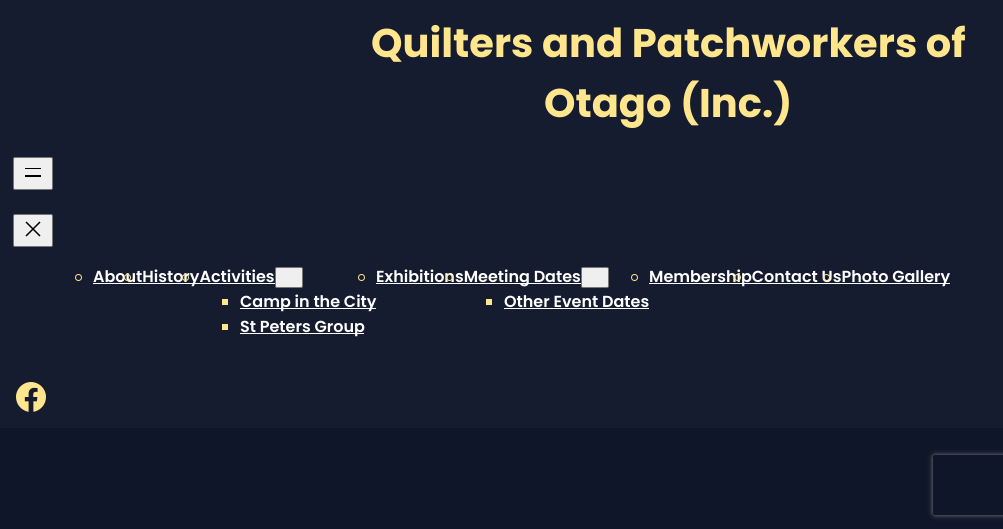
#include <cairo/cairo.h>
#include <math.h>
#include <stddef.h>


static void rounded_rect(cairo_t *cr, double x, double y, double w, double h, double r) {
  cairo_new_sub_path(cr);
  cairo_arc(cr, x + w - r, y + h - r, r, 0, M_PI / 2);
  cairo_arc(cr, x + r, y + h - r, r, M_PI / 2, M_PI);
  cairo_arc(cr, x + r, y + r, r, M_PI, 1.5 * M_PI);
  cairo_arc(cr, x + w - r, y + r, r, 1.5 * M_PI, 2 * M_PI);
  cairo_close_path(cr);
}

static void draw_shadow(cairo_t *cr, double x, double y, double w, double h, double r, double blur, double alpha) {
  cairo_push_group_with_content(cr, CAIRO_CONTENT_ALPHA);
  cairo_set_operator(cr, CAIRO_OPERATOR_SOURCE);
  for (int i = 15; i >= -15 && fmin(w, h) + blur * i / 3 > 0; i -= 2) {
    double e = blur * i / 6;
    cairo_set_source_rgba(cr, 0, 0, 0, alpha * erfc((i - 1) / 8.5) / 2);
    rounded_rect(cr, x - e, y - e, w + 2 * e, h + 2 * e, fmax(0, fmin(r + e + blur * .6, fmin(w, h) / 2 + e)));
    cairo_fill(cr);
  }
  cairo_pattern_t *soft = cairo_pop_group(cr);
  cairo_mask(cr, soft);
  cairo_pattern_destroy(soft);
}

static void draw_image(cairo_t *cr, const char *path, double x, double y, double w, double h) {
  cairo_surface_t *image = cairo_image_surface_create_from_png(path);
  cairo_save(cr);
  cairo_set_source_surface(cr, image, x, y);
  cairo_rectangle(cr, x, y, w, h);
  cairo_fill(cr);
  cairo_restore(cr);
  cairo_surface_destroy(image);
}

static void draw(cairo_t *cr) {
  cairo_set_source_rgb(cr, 15 / 255.0, 22 / 255.0, 41 / 255.0);
  cairo_paint(cr);
  cairo_set_source_rgb(cr, 22 / 255.0, 28 / 255.0, 48 / 255.0);
  cairo_rectangle(cr, 0, 0, 1003, 428);
  cairo_fill(cr);
  cairo_set_source_rgb(cr, 239 / 255.0, 239 / 255.0, 239 / 255.0);
  rounded_rect(cr, 13.5, 157.5, 39, 32, 1.5);
  cairo_fill_preserve(cr);
  cairo_set_source_rgb(cr, 118 / 255.0, 118 / 255.0, 118 / 255.0);
  cairo_set_line_width(cr, 1);
  cairo_stroke(cr);
  cairo_set_source_rgb(cr, 0, 0, 0);
  cairo_rectangle(cr, 25, 168, 16, 1);
  cairo_fill(cr);
  cairo_rectangle(cr, 25, 175, 16, 2);
  cairo_fill(cr);
  cairo_set_source_rgb(cr, 239 / 255.0, 239 / 255.0, 239 / 255.0);
  rounded_rect(cr, 13.5, 214.5, 39, 32, 1.5);
  cairo_fill_preserve(cr);
  cairo_set_source_rgb(cr, 118 / 255.0, 118 / 255.0, 118 / 255.0);
  cairo_stroke(cr);
  draw_image(cr, "images/1.png", 25, 221, 16, 16);
  cairo_arc(cr, 78.5, 277.5, 3, 0, 2 * M_PI);
  cairo_set_source_rgb(cr, 1, 230 / 255.0, 141 / 255.0);
  cairo_stroke(cr);
  cairo_set_source_rgb(cr, 1, 1, 1);
  cairo_rectangle(cr, 93, 283, 182, 1);
  cairo_fill(cr);
  cairo_arc(cr, 361.5, 277.5, 3, 0, 2 * M_PI);
  cairo_set_source_rgb(cr, 1, 230 / 255.0, 141 / 255.0);
  cairo_stroke(cr);
  cairo_set_source_rgb(cr, 1, 1, 1);
  cairo_rectangle(cr, 376, 283, 205, 1);
  cairo_fill(cr);
  cairo_arc(cr, 634.5, 277.5, 3, 0, 2 * M_PI);
  cairo_set_source_rgb(cr, 1, 230 / 255.0, 141 / 255.0);
  cairo_stroke(cr);
  cairo_set_source_rgb(cr, 1, 1, 1);
  cairo_rectangle(cr, 649, 283, 301, 1);
  cairo_fill(cr);
  cairo_set_source_rgb(cr, 239 / 255.0, 239 / 255.0, 239 / 255.0);
  rounded_rect(cr, 275.5, 267.5, 27, 20, 1.5);
  cairo_fill_preserve(cr);
  cairo_set_source_rgb(cr, 118 / 255.0, 118 / 255.0, 118 / 255.0);
  cairo_stroke(cr);
  cairo_set_source_rgb(cr, 1, 230 / 255.0, 141 / 255.0);
  cairo_rectangle(cr, 222, 299, 6, 6);
  cairo_fill(cr);
  cairo_set_source_rgb(cr, 1, 1, 1);
  cairo_rectangle(cr, 240, 308, 136, 1);
  cairo_fill(cr);
  cairo_set_source_rgb(cr, 1, 230 / 255.0, 141 / 255.0);
  cairo_rectangle(cr, 222, 324, 6, 6);
  cairo_fill(cr);
  cairo_set_source_rgb(cr, 1, 1, 1);
  cairo_rectangle(cr, 240, 333, 124, 1);
  cairo_fill(cr);
  cairo_set_source_rgb(cr, 239 / 255.0, 239 / 255.0, 239 / 255.0);
  rounded_rect(cr, 581.5, 267.5, 27, 20, 1.5);
  cairo_fill_preserve(cr);
  cairo_set_source_rgb(cr, 118 / 255.0, 118 / 255.0, 118 / 255.0);
  cairo_stroke(cr);
  cairo_set_source_rgb(cr, 1, 230 / 255.0, 141 / 255.0);
  cairo_rectangle(cr, 486, 299, 6, 6);
  cairo_fill(cr);
  cairo_set_source_rgb(cr, 1, 1, 1);
  cairo_rectangle(cr, 504, 308, 145, 1);
  cairo_fill(cr);
  draw_image(cr, "images/2.png", 16, 382, 30, 30);
  cairo_save(cr);
  cairo_set_fill_rule(cr, CAIRO_FILL_RULE_EVEN_ODD);
  cairo_new_path(cr);
  cairo_move_to(cr, 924, 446);
  cairo_line_to(cr, 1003, 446);
  cairo_line_to(cr, 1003, 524);
  cairo_line_to(cr, 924, 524);
  cairo_close_path(cr);
  cairo_move_to(cr, 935, 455);
  cairo_line_to(cr, 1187, 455);
  cairo_curve_to(cr, 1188, 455, 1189, 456, 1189, 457);
  cairo_line_to(cr, 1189, 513);
  cairo_curve_to(cr, 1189, 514, 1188, 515, 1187, 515);
  cairo_line_to(cr, 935, 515);
  cairo_curve_to(cr, 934, 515, 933, 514, 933, 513);
  cairo_line_to(cr, 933, 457);
  cairo_curve_to(cr, 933, 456, 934, 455, 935, 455);
  cairo_close_path(cr);
  cairo_clip(cr);
  cairo_set_source_rgb(cr, 128 / 255.0, 128 / 255.0, 128 / 255.0);
  draw_shadow(cr, 933, 455, 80, 60, 2, 2.5, 1);
  cairo_restore(cr);
  cairo_select_font_face(cr, "Poppins", CAIRO_FONT_SLANT_NORMAL, CAIRO_FONT_WEIGHT_BOLD);
  cairo_set_font_size(cr, 40);
  cairo_set_source_rgb(cr, 1, 230 / 255.0, 141 / 255.0);
  cairo_move_to(cr, 371, 57);
  cairo_show_text(cr, "Quilters and Patchworkers of");
  cairo_move_to(cr, 544, 117);
  cairo_show_text(cr, "Otago (Inc.)");
  cairo_select_font_face(cr, "Poppins SemiBold", CAIRO_FONT_SLANT_NORMAL, CAIRO_FONT_WEIGHT_NORMAL);
  cairo_set_font_size(cr, 16);
  cairo_set_source_rgb(cr, 1, 1, 1);
  cairo_move_to(cr, 93, 282);
  cairo_show_text(cr, "AboutHistoryActivities");
  cairo_move_to(cr, 376, 282);
  cairo_show_text(cr, "ExhibitionsMeeting Dates");
  cairo_move_to(cr, 649, 282);
  cairo_show_text(cr, "MembershipContact UsPhoto Gallery");
  cairo_new_path(cr);
  cairo_arc(cr, 127.5, 277.5, 3, 0, 2 * M_PI);
  cairo_set_source_rgb(cr, 1, 230 / 255.0, 141 / 255.0);
  cairo_stroke(cr);
  cairo_arc(cr, 737.5, 277.5, 3, 0, 2 * M_PI);
  cairo_stroke(cr);
  cairo_arc(cr, 826.5, 277.5, 3, 0, 2 * M_PI);
  cairo_stroke(cr);
  cairo_arc(cr, 185.5, 277.5, 3, 0, 2 * M_PI);
  cairo_stroke(cr);
  cairo_set_source_rgb(cr, 1, 1, 1);
  cairo_move_to(cr, 240, 307);
  cairo_show_text(cr, "Camp in the City");
  cairo_move_to(cr, 240, 332);
  cairo_show_text(cr, "St Peters Group");
  cairo_new_path(cr);
  cairo_arc(cr, 449.5, 277.5, 3, 0, 2 * M_PI);
  cairo_set_source_rgb(cr, 1, 230 / 255.0, 141 / 255.0);
  cairo_stroke(cr);
  cairo_set_source_rgb(cr, 1, 1, 1);
  cairo_move_to(cr, 504, 307);
  cairo_show_text(cr, "Other Event Dates");
}

int main(void) {
  cairo_surface_t *surface = cairo_image_surface_create(CAIRO_FORMAT_RGB24, 1003, 529);
  cairo_t *cr = cairo_create(surface);
  cairo_font_options_t *options = cairo_font_options_create();
  cairo_font_options_set_hint_metrics(options, CAIRO_HINT_METRICS_OFF);
  cairo_font_options_set_hint_style(options, CAIRO_HINT_STYLE_NONE);
  cairo_set_font_options(cr, options);
  cairo_set_miter_limit(cr, 4);
  draw(cr);
  cairo_surface_write_to_png(surface, "out.png");
  cairo_font_options_destroy(options);
  cairo_destroy(cr);
  cairo_surface_destroy(surface);
  return 0;
}
